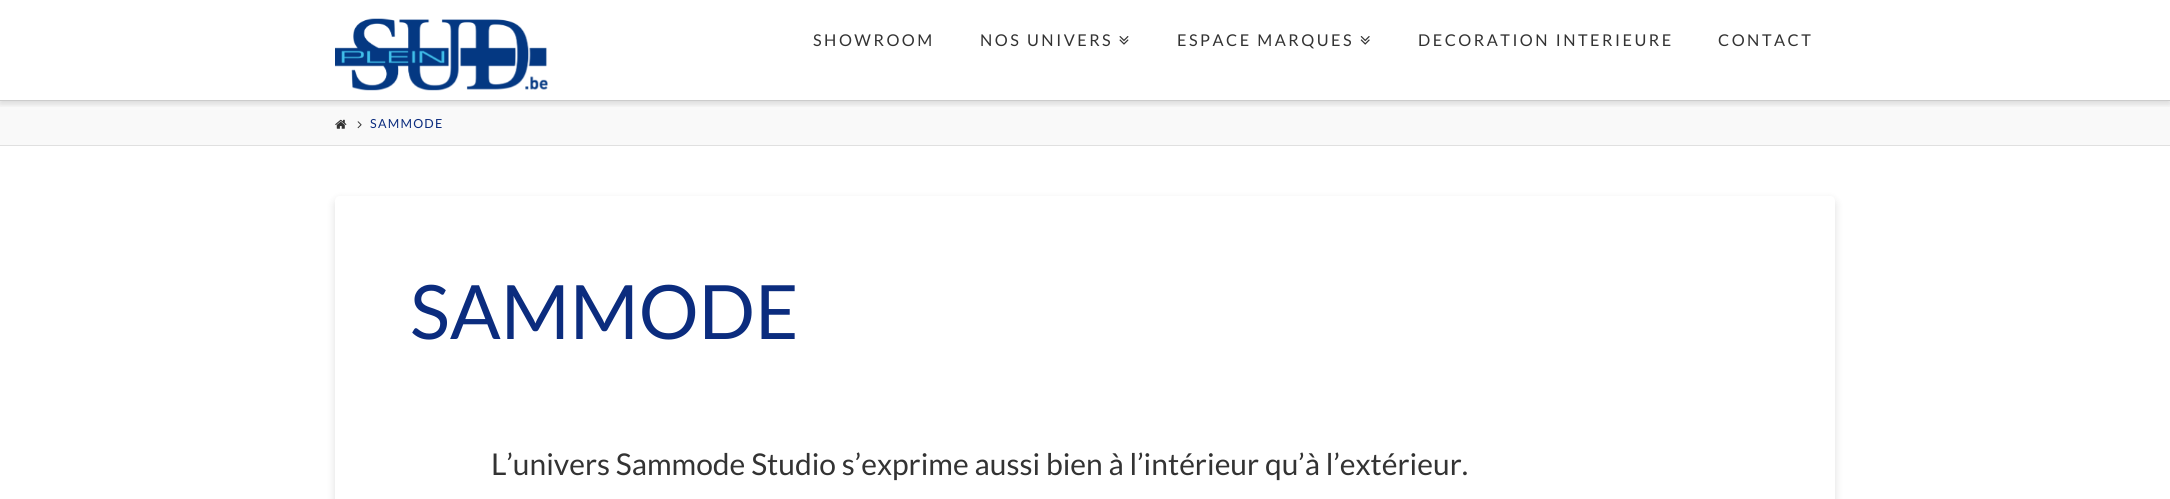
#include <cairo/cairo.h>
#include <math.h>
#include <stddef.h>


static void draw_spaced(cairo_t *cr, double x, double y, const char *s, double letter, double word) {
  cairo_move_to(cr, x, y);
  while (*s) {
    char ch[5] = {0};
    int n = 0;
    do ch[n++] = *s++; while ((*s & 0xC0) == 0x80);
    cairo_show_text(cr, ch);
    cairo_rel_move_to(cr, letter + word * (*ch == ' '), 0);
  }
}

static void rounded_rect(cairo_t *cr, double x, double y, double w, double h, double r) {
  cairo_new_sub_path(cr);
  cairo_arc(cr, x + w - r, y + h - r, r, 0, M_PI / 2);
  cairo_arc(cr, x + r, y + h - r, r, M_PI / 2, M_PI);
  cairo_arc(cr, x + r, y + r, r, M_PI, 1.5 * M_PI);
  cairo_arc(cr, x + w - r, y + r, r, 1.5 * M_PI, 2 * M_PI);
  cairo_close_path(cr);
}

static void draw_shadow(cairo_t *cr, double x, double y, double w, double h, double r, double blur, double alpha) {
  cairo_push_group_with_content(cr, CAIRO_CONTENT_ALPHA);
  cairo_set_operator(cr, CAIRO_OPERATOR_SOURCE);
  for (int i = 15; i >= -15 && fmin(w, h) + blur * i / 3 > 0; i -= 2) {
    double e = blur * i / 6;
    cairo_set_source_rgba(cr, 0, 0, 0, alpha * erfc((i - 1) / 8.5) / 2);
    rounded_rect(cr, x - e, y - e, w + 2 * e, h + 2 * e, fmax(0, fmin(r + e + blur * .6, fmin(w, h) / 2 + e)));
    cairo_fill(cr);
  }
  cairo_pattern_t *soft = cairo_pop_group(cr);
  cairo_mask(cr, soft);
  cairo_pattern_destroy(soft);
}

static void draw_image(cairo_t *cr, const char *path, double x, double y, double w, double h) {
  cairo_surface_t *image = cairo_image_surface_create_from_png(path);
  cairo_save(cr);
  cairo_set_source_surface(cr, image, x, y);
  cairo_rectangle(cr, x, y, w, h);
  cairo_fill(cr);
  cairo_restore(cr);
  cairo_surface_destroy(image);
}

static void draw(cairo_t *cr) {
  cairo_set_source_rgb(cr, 1, 1, 1);
  cairo_paint(cr);
  cairo_set_source_rgb(cr, 249 / 255.0, 249 / 255.0, 249 / 255.0);
  cairo_rectangle(cr, 0, 101, 2170, 44);
  cairo_fill(cr);
  cairo_save(cr);
  cairo_rectangle(cr, 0, 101, 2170, 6);
  cairo_clip(cr);
  cairo_set_source_rgb(cr, 0, 0, 0);
  draw_shadow(cr, 0, 3, 2170, 101, 0, 3, 0.13);
  cairo_restore(cr);
  cairo_set_source_rgb(cr, 204 / 255.0, 204 / 255.0, 204 / 255.0);
  cairo_rectangle(cr, 0, 100, 2170, 1);
  cairo_fill(cr);
  draw_image(cr, "images/1.png", 335, 18, 213, 73);
  draw_image(cr, "images/2.png", 1119, 36, 10, 9);
  draw_image(cr, "images/3.png", 1360, 36, 10, 9);
  cairo_set_source_rgb(cr, 224 / 255.0, 224 / 255.0, 224 / 255.0);
  cairo_rectangle(cr, 0, 145, 2170, 1);
  cairo_fill(cr);
  draw_image(cr, "images/4.png", 335, 119, 12, 10);
  draw_image(cr, "images/5.png", 357, 121, 5, 8);
  cairo_set_source_rgb(cr, 0, 0, 0);
  draw_shadow(cr, 335, 200, 1500, 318, 5, 4.5, 0.13);
  cairo_set_source_rgb(cr, 1, 1, 1);
  rounded_rect(cr, 335, 196, 1500, 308, 5);
  cairo_fill(cr);
  cairo_select_font_face(cr, "Lato", CAIRO_FONT_SLANT_NORMAL, CAIRO_FONT_WEIGHT_NORMAL);
  cairo_set_font_size(cr, 16.25);
  cairo_set_source_rgb(cr, 51 / 255.0, 51 / 255.0, 51 / 255.0);
  draw_spaced(cr, 813, 46, "SHOWROOM", 2.5, 0);
  draw_spaced(cr, 980, 46, "NOS UNIVERS", 2.5, 0);
  draw_spaced(cr, 1177, 46, "ESPACE MARQUES", 2.5, 0);
  draw_spaced(cr, 1418, 46, "DECORATION INTERIEURE", 2.5, 0);
  draw_spaced(cr, 1718, 46, "CONTACT", 2.5, 0);
  cairo_set_font_size(cr, 12.5);
  cairo_set_source_rgb(cr, 11 / 255.0, 44 / 255.0, 126 / 255.0);
  draw_spaced(cr, 370, 128, "SAMMODE", 1.25, 0);
  cairo_set_font_size(cr, 75);
  cairo_move_to(cr, 410, 339);
  cairo_show_text(cr, "SAMMODE");
  cairo_set_font_size(cr, 30);
  cairo_set_source_rgb(cr, 51 / 255.0, 51 / 255.0, 51 / 255.0);
  cairo_move_to(cr, 491, 475);
  cairo_show_text(cr, "L’univers Sammode Studio s’exprime aussi bien à l’intérieur qu’à l’extérieur.");
}

int main(void) {
  cairo_surface_t *surface = cairo_image_surface_create(CAIRO_FORMAT_RGB24, 2170, 499);
  cairo_t *cr = cairo_create(surface);
  cairo_font_options_t *options = cairo_font_options_create();
  cairo_font_options_set_hint_metrics(options, CAIRO_HINT_METRICS_OFF);
  cairo_font_options_set_hint_style(options, CAIRO_HINT_STYLE_NONE);
  cairo_set_font_options(cr, options);
  cairo_set_miter_limit(cr, 4);
  draw(cr);
  cairo_surface_write_to_png(surface, "out.png");
  cairo_font_options_destroy(options);
  cairo_destroy(cr);
  cairo_surface_destroy(surface);
  return 0;
}
